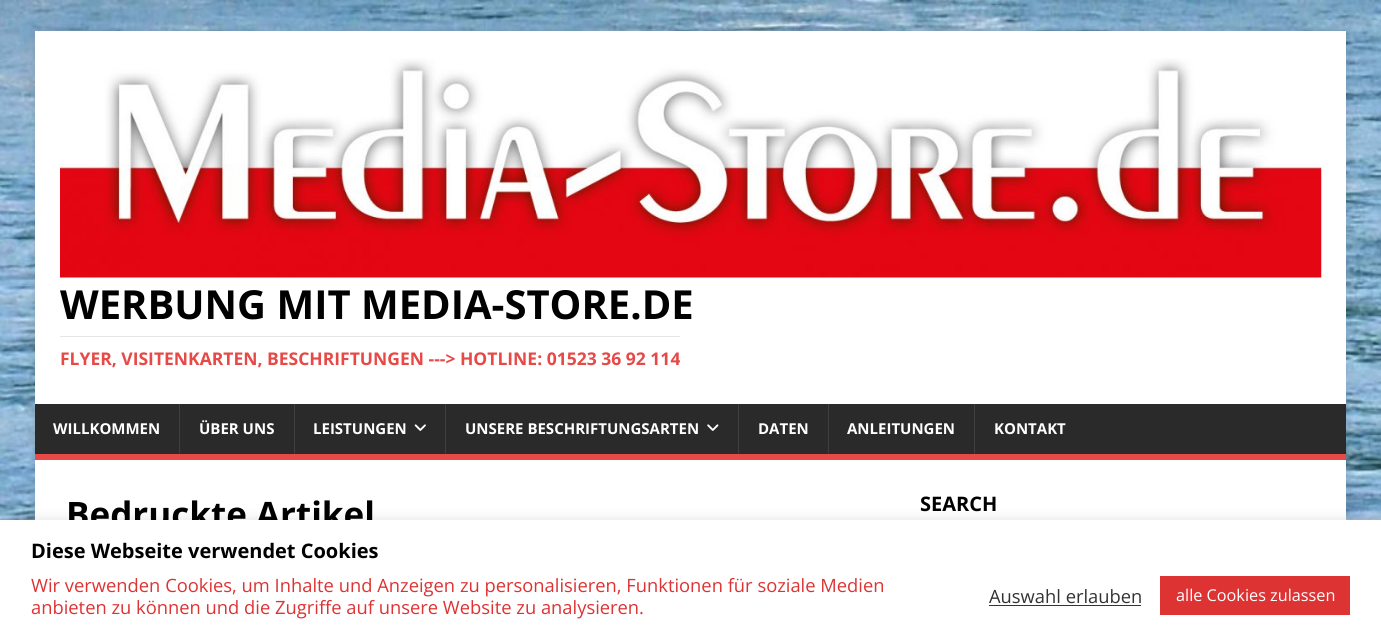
#include <cairo/cairo.h>
#include <math.h>
#include <stddef.h>


static void rounded_rect(cairo_t *cr, double x, double y, double w, double h, double r) {
  cairo_new_sub_path(cr);
  cairo_arc(cr, x + w - r, y + h - r, r, 0, M_PI / 2);
  cairo_arc(cr, x + r, y + h - r, r, M_PI / 2, M_PI);
  cairo_arc(cr, x + r, y + r, r, M_PI, 1.5 * M_PI);
  cairo_arc(cr, x + w - r, y + r, r, 1.5 * M_PI, 2 * M_PI);
  cairo_close_path(cr);
}

static void draw_shadow(cairo_t *cr, double x, double y, double w, double h, double r, double blur, double alpha) {
  cairo_push_group_with_content(cr, CAIRO_CONTENT_ALPHA);
  cairo_set_operator(cr, CAIRO_OPERATOR_SOURCE);
  for (int i = 15; i >= -15 && fmin(w, h) + blur * i / 3 > 0; i -= 2) {
    double e = blur * i / 6;
    cairo_set_source_rgba(cr, 0, 0, 0, alpha * erfc((i - 1) / 8.5) / 2);
    rounded_rect(cr, x - e, y - e, w + 2 * e, h + 2 * e, fmax(0, fmin(r + e + blur * .6, fmin(w, h) / 2 + e)));
    cairo_fill(cr);
  }
  cairo_pattern_t *soft = cairo_pop_group(cr);
  cairo_mask(cr, soft);
  cairo_pattern_destroy(soft);
}

static void draw_image(cairo_t *cr, const char *path, double x, double y, double w, double h) {
  cairo_surface_t *image = cairo_image_surface_create_from_png(path);
  cairo_save(cr);
  cairo_set_source_surface(cr, image, x, y);
  cairo_rectangle(cr, x, y, w, h);
  cairo_fill(cr);
  cairo_restore(cr);
  cairo_surface_destroy(image);
}

static void draw(cairo_t *cr) {
  cairo_set_source_rgb(cr, 1, 1, 1);
  cairo_paint(cr);
  draw_image(cr, "images/1.png", 0, 0, 1381, 520);
  cairo_set_source_rgb(cr, 50 / 255.0, 50 / 255.0, 50 / 255.0);
  draw_shadow(cr, 35, 31, 1311, 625, 0, 6, 0.17);
  cairo_set_source_rgb(cr, 1, 1, 1);
  cairo_rectangle(cr, 35, 31, 1311, 373);
  cairo_fill(cr);
  draw_image(cr, "images/2.png", 60, 58, 1262, 220);
  cairo_set_source_rgb(cr, 229 / 255.0, 229 / 255.0, 229 / 255.0);
  cairo_rectangle(cr, 60, 336, 620, 1);
  cairo_fill(cr);
  cairo_set_source_rgb(cr, 42 / 255.0, 42 / 255.0, 42 / 255.0);
  cairo_rectangle(cr, 35, 404, 1311, 50);
  cairo_fill(cr);
  cairo_set_source_rgb(cr, 230 / 255.0, 73 / 255.0, 70 / 255.0);
  cairo_rectangle(cr, 35, 454, 1311, 6);
  cairo_fill(cr);
  cairo_set_source_rgb(cr, 63 / 255.0, 63 / 255.0, 63 / 255.0);
  cairo_rectangle(cr, 179, 404, 1, 50);
  cairo_fill(cr);
  cairo_rectangle(cr, 294, 404, 1, 50);
  cairo_fill(cr);
  draw_image(cr, "images/3.png", 414, 424, 12, 7);
  cairo_rectangle(cr, 445, 404, 1, 50);
  cairo_fill(cr);
  draw_image(cr, "images/4.png", 707, 424, 12, 7);
  cairo_rectangle(cr, 738, 404, 1, 50);
  cairo_fill(cr);
  cairo_rectangle(cr, 828, 404, 1, 50);
  cairo_fill(cr);
  cairo_rectangle(cr, 974, 404, 1, 50);
  cairo_fill(cr);
  cairo_set_source_rgb(cr, 1, 1, 1);
  cairo_rectangle(cr, 35, 460, 1311, 60);
  cairo_fill(cr);
  cairo_set_source_rgb(cr, 172 / 255.0, 171 / 255.0, 171 / 255.0);
  draw_shadow(cr, 0, 519, 1381, 119, 0, 6, 0.3);
  cairo_select_font_face(cr, "Open Sans", CAIRO_FONT_SLANT_NORMAL, CAIRO_FONT_WEIGHT_BOLD);
  cairo_set_font_size(cr, 40);
  cairo_set_source_rgb(cr, 0, 0, 0);
  cairo_move_to(cr, 60, 319);
  cairo_show_text(cr, "WERBUNG MIT MEDIA-STORE.DE");
  cairo_set_font_size(cr, 17.5);
  cairo_set_source_rgb(cr, 230 / 255.0, 73 / 255.0, 70 / 255.0);
  cairo_move_to(cr, 60, 365);
  cairo_show_text(cr, "FLYER, VISITENKARTEN, BESCHRIFTUNGEN ---> HOTLINE: 01523 36 92 114");
  cairo_set_font_size(cr, 15);
  cairo_set_source_rgb(cr, 1, 1, 1);
  cairo_move_to(cr, 53, 434);
  cairo_show_text(cr, "WILLKOMMEN");
  cairo_move_to(cr, 199, 434);
  cairo_show_text(cr, "ÜBER UNS");
  cairo_move_to(cr, 313, 434);
  cairo_show_text(cr, "LEISTUNGEN");
  cairo_move_to(cr, 465, 434);
  cairo_show_text(cr, "UNSERE BESCHRIFTUNGSARTEN");
  cairo_move_to(cr, 758, 434);
  cairo_show_text(cr, "DATEN");
  cairo_move_to(cr, 847, 434);
  cairo_show_text(cr, "ANLEITUNGEN");
  cairo_move_to(cr, 994, 434);
  cairo_show_text(cr, "KONTAKT");
  cairo_set_font_size(cr, 35);
  cairo_set_source_rgb(cr, 0, 0, 0);
  cairo_move_to(cr, 66, 527);
  cairo_show_text(cr, "Bedruckte Artikel");
  cairo_set_font_size(cr, 20);
  cairo_move_to(cr, 920, 511);
  cairo_show_text(cr, "SEARCH");
  cairo_set_source_rgb(cr, 1, 1, 1);
  cairo_rectangle(cr, 0, 520, 1381, 118);
  cairo_fill(cr);
  cairo_set_source_rgb(cr, 0, 0, 0);
  cairo_move_to(cr, 31, 558);
  cairo_show_text(cr, "Diese Webseite verwendet Cookies");
  cairo_select_font_face(cr, "Open Sans", CAIRO_FONT_SLANT_NORMAL, CAIRO_FONT_WEIGHT_NORMAL);
  cairo_set_font_size(cr, 18.35);
  cairo_set_source_rgb(cr, 221 / 255.0, 51 / 255.0, 51 / 255.0);
  cairo_move_to(cr, 31, 592);
  cairo_show_text(cr, "Wir verwenden Cookies, um Inhalte und Anzeigen zu personalisieren, Funktionen für soziale Medien");
  cairo_move_to(cr, 31, 614);
  cairo_show_text(cr, "anbieten zu können und die Zugriffe auf unsere Website zu analysieren.");
  cairo_set_source_rgb(cr, 51 / 255.0, 51 / 255.0, 51 / 255.0);
  cairo_move_to(cr, 989, 603);
  cairo_show_text(cr, "Auswahl erlauben");
  cairo_rectangle(cr, 989, 605, 152, 1);
  cairo_fill(cr);
  cairo_set_source_rgb(cr, 221 / 255.0, 51 / 255.0, 51 / 255.0);
  cairo_rectangle(cr, 1160, 576, 190, 39);
  cairo_fill(cr);
  cairo_set_font_size(cr, 16.25);
  cairo_set_source_rgb(cr, 1, 1, 1);
  cairo_move_to(cr, 1176, 601);
  cairo_show_text(cr, "alle Cookies zulassen");
}

int main(void) {
  cairo_surface_t *surface = cairo_image_surface_create(CAIRO_FORMAT_RGB24, 1381, 638);
  cairo_t *cr = cairo_create(surface);
  cairo_font_options_t *options = cairo_font_options_create();
  cairo_font_options_set_hint_metrics(options, CAIRO_HINT_METRICS_OFF);
  cairo_font_options_set_hint_style(options, CAIRO_HINT_STYLE_NONE);
  cairo_set_font_options(cr, options);
  cairo_set_miter_limit(cr, 4);
  draw(cr);
  cairo_surface_write_to_png(surface, "out.png");
  cairo_font_options_destroy(options);
  cairo_destroy(cr);
  cairo_surface_destroy(surface);
  return 0;
}
